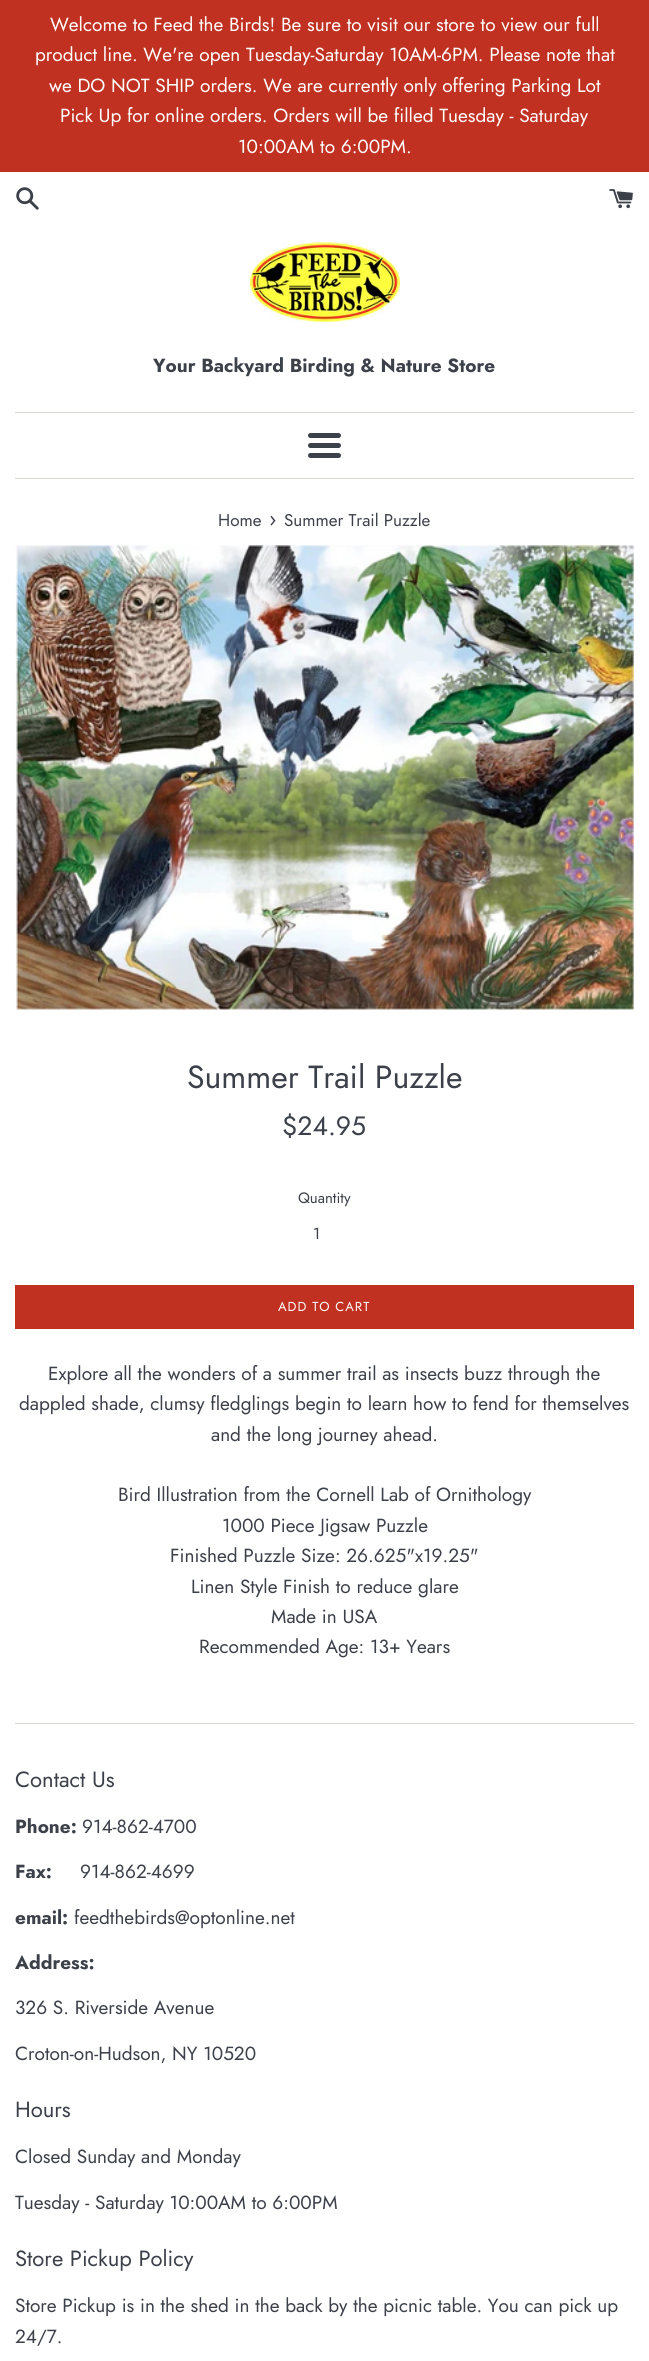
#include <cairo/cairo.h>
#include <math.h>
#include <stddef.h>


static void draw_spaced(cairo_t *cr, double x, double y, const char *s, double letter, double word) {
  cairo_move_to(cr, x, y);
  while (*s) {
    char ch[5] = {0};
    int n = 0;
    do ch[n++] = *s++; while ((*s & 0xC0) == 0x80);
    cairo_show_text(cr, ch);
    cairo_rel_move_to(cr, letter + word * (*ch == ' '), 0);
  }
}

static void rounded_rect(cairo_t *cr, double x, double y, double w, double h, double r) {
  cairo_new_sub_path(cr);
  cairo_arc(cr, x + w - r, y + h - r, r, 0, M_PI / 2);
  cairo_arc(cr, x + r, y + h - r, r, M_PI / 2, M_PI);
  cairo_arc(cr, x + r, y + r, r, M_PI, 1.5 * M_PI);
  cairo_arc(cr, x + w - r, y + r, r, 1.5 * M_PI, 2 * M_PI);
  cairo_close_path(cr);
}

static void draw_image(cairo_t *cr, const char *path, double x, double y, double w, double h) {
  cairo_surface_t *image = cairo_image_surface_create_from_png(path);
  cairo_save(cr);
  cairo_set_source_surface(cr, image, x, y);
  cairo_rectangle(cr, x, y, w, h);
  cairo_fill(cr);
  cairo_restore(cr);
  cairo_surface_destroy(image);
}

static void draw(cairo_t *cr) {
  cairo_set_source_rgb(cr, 1, 1, 1);
  cairo_paint(cr);
  cairo_set_source_rgb(cr, 193 / 255.0, 49 / 255.0, 33 / 255.0);
  cairo_rectangle(cr, 0, 0, 649, 172);
  cairo_fill(cr);
  draw_image(cr, "images/1.png", 16, 187, 23, 23);
  draw_image(cr, "images/2.png", 609, 189, 24, 20);
  draw_image(cr, "images/3.png", 250, 242, 150, 80);
  cairo_set_source_rgb(cr, 215 / 255.0, 216 / 255.0, 210 / 255.0);
  cairo_rectangle(cr, 15, 412, 619, 1);
  cairo_fill(cr);
  cairo_set_source_rgb(cr, 60 / 255.0, 64 / 255.0, 73 / 255.0);
  rounded_rect(cr, 308, 433, 33, 5, 2.5);
  cairo_fill(cr);
  rounded_rect(cr, 308, 443, 33, 5, 2.5);
  cairo_fill(cr);
  rounded_rect(cr, 308, 453, 33, 5, 2.5);
  cairo_fill(cr);
  cairo_set_source_rgb(cr, 215 / 255.0, 216 / 255.0, 210 / 255.0);
  cairo_rectangle(cr, 15, 478, 619, 1);
  cairo_fill(cr);
  draw_image(cr, "images/4.png", 15, 545, 619, 465);
  cairo_set_source_rgb(cr, 193 / 255.0, 49 / 255.0, 33 / 255.0);
  cairo_rectangle(cr, 15, 1285, 619, 44);
  cairo_fill(cr);
  cairo_set_source_rgb(cr, 215 / 255.0, 216 / 255.0, 210 / 255.0);
  cairo_rectangle(cr, 15, 1723, 619, 1);
  cairo_fill(cr);
  cairo_select_font_face(cr, "Jost", CAIRO_FONT_SLANT_NORMAL, CAIRO_FONT_WEIGHT_NORMAL);
  cairo_set_font_size(cr, 19);
  cairo_set_source_rgb(cr, 1, 1, 1);
  cairo_move_to(cr, 50, 31);
  cairo_show_text(cr, "Welcome to Feed the Birds! Be sure to visit our store to view our full");
  cairo_move_to(cr, 35, 61);
  cairo_show_text(cr, "product line. We're open Tuesday-Saturday 10AM-6PM. Please note that");
  cairo_move_to(cr, 49, 92);
  cairo_show_text(cr, "we DO NOT SHIP orders. We are currently only offering Parking Lot");
  cairo_move_to(cr, 60, 122);
  cairo_show_text(cr, "Pick Up for online orders. Orders will be filled Tuesday - Saturday");
  cairo_move_to(cr, 238, 153);
  cairo_show_text(cr, "10:00AM to 6:00PM.");
  cairo_select_font_face(cr, "Jost", CAIRO_FONT_SLANT_NORMAL, CAIRO_FONT_WEIGHT_BOLD);
  cairo_set_source_rgb(cr, 60 / 255.0, 64 / 255.0, 73 / 255.0);
  cairo_move_to(cr, 153, 372);
  cairo_show_text(cr, "Your Backyard Birding & Nature Store");
  cairo_select_font_face(cr, "Jost", CAIRO_FONT_SLANT_NORMAL, CAIRO_FONT_WEIGHT_NORMAL);
  cairo_set_font_size(cr, 17);
  cairo_move_to(cr, 218, 526);
  cairo_show_text(cr, "Home");
  cairo_set_font_size(cr, 21);
  cairo_move_to(cr, 269, 526);
  cairo_show_text(cr, "›");
  cairo_set_font_size(cr, 17);
  cairo_move_to(cr, 284, 526);
  cairo_show_text(cr, "Summer Trail Puzzle");
  cairo_set_font_size(cr, 32);
  cairo_move_to(cr, 187, 1088);
  cairo_show_text(cr, "Summer Trail Puzzle");
  cairo_set_font_size(cr, 26.5);
  cairo_move_to(cr, 282, 1135);
  cairo_show_text(cr, "$24.95");
  cairo_set_font_size(cr, 15);
  cairo_move_to(cr, 298, 1203);
  cairo_show_text(cr, "Quantity");
  cairo_set_font_size(cr, 16);
  cairo_move_to(cr, 313, 1239);
  cairo_show_text(cr, "1");
  cairo_set_font_size(cr, 13);
  cairo_set_source_rgb(cr, 1, 1, 1);
  draw_spaced(cr, 278, 1311, "ADD TO CART", 1, 0);
  cairo_set_font_size(cr, 19);
  cairo_set_source_rgb(cr, 60 / 255.0, 64 / 255.0, 73 / 255.0);
  cairo_move_to(cr, 48, 1380);
  cairo_show_text(cr, "Explore all the wonders of a summer trail as insects buzz through the");
  cairo_move_to(cr, 19, 1410);
  cairo_show_text(cr, "dappled shade, clumsy fledglings begin to learn how to fend for themselves");
  cairo_move_to(cr, 211, 1441);
  cairo_show_text(cr, "and the long journey ahead.");
  cairo_move_to(cr, 118, 1501);
  cairo_show_text(cr, "Bird Illustration from the Cornell Lab of Ornithology");
  cairo_move_to(cr, 222, 1532);
  cairo_show_text(cr, "1000 Piece Jigsaw Puzzle");
  cairo_move_to(cr, 170, 1562);
  cairo_show_text(cr, "Finished Puzzle Size: 26.625\"x19.25\"");
  cairo_move_to(cr, 191, 1593);
  cairo_show_text(cr, "Linen Style Finish to reduce glare");
  cairo_move_to(cr, 271, 1623);
  cairo_show_text(cr, "Made in USA");
  cairo_move_to(cr, 199, 1653);
  cairo_show_text(cr, "Recommended Age: 13+ Years");
  cairo_set_font_size(cr, 22);
  cairo_move_to(cr, 15, 1787);
  cairo_show_text(cr, "Contact Us");
  cairo_select_font_face(cr, "Jost", CAIRO_FONT_SLANT_NORMAL, CAIRO_FONT_WEIGHT_BOLD);
  cairo_set_font_size(cr, 19);
  cairo_move_to(cr, 15, 1833);
  cairo_show_text(cr, "Phone:");
  cairo_select_font_face(cr, "Jost", CAIRO_FONT_SLANT_NORMAL, CAIRO_FONT_WEIGHT_NORMAL);
  cairo_move_to(cr, 82, 1833);
  cairo_show_text(cr, "914-862-4700");
  cairo_select_font_face(cr, "Jost", CAIRO_FONT_SLANT_NORMAL, CAIRO_FONT_WEIGHT_BOLD);
  cairo_move_to(cr, 15, 1878);
  cairo_show_text(cr, "Fax:");
  cairo_select_font_face(cr, "Jost", CAIRO_FONT_SLANT_NORMAL, CAIRO_FONT_WEIGHT_NORMAL);
  cairo_move_to(cr, 80, 1878);
  cairo_show_text(cr, "914-862-4699");
  cairo_select_font_face(cr, "Jost", CAIRO_FONT_SLANT_NORMAL, CAIRO_FONT_WEIGHT_BOLD);
  cairo_move_to(cr, 15, 1924);
  cairo_show_text(cr, "email:");
  cairo_select_font_face(cr, "Jost", CAIRO_FONT_SLANT_NORMAL, CAIRO_FONT_WEIGHT_NORMAL);
  cairo_move_to(cr, 74, 1924);
  cairo_show_text(cr, "feedthebirds@optonline.net");
  cairo_select_font_face(cr, "Jost", CAIRO_FONT_SLANT_NORMAL, CAIRO_FONT_WEIGHT_BOLD);
  cairo_move_to(cr, 15, 1969);
  cairo_show_text(cr, "Address:");
  cairo_select_font_face(cr, "Jost", CAIRO_FONT_SLANT_NORMAL, CAIRO_FONT_WEIGHT_NORMAL);
  cairo_move_to(cr, 15, 2014);
  cairo_show_text(cr, "326 S. Riverside Avenue");
  cairo_move_to(cr, 15, 2060);
  cairo_show_text(cr, "Croton-on-Hudson, NY 10520");
  cairo_set_font_size(cr, 22);
  cairo_move_to(cr, 15, 2117);
  cairo_show_text(cr, "Hours");
  cairo_set_font_size(cr, 19);
  cairo_move_to(cr, 15, 2163);
  cairo_show_text(cr, "Closed Sunday and Monday");
  cairo_move_to(cr, 15, 2209);
  cairo_show_text(cr, "Tuesday - Saturday 10:00AM to 6:00PM");
  cairo_set_font_size(cr, 22);
  cairo_move_to(cr, 15, 2266);
  cairo_show_text(cr, "Store Pickup Policy");
  cairo_set_font_size(cr, 19);
  cairo_move_to(cr, 15, 2312);
  cairo_show_text(cr, "Store Pickup is in the shed in the back by the picnic table. You can pick up");
  cairo_move_to(cr, 15, 2343);
  cairo_show_text(cr, "24/7.");
}

int main(void) {
  cairo_surface_t *surface = cairo_image_surface_create(CAIRO_FORMAT_RGB24, 649, 2361);
  cairo_t *cr = cairo_create(surface);
  cairo_font_options_t *options = cairo_font_options_create();
  cairo_font_options_set_hint_metrics(options, CAIRO_HINT_METRICS_OFF);
  cairo_font_options_set_hint_style(options, CAIRO_HINT_STYLE_NONE);
  cairo_set_font_options(cr, options);
  cairo_set_miter_limit(cr, 4);
  draw(cr);
  cairo_surface_write_to_png(surface, "out.png");
  cairo_font_options_destroy(options);
  cairo_destroy(cr);
  cairo_surface_destroy(surface);
  return 0;
}
